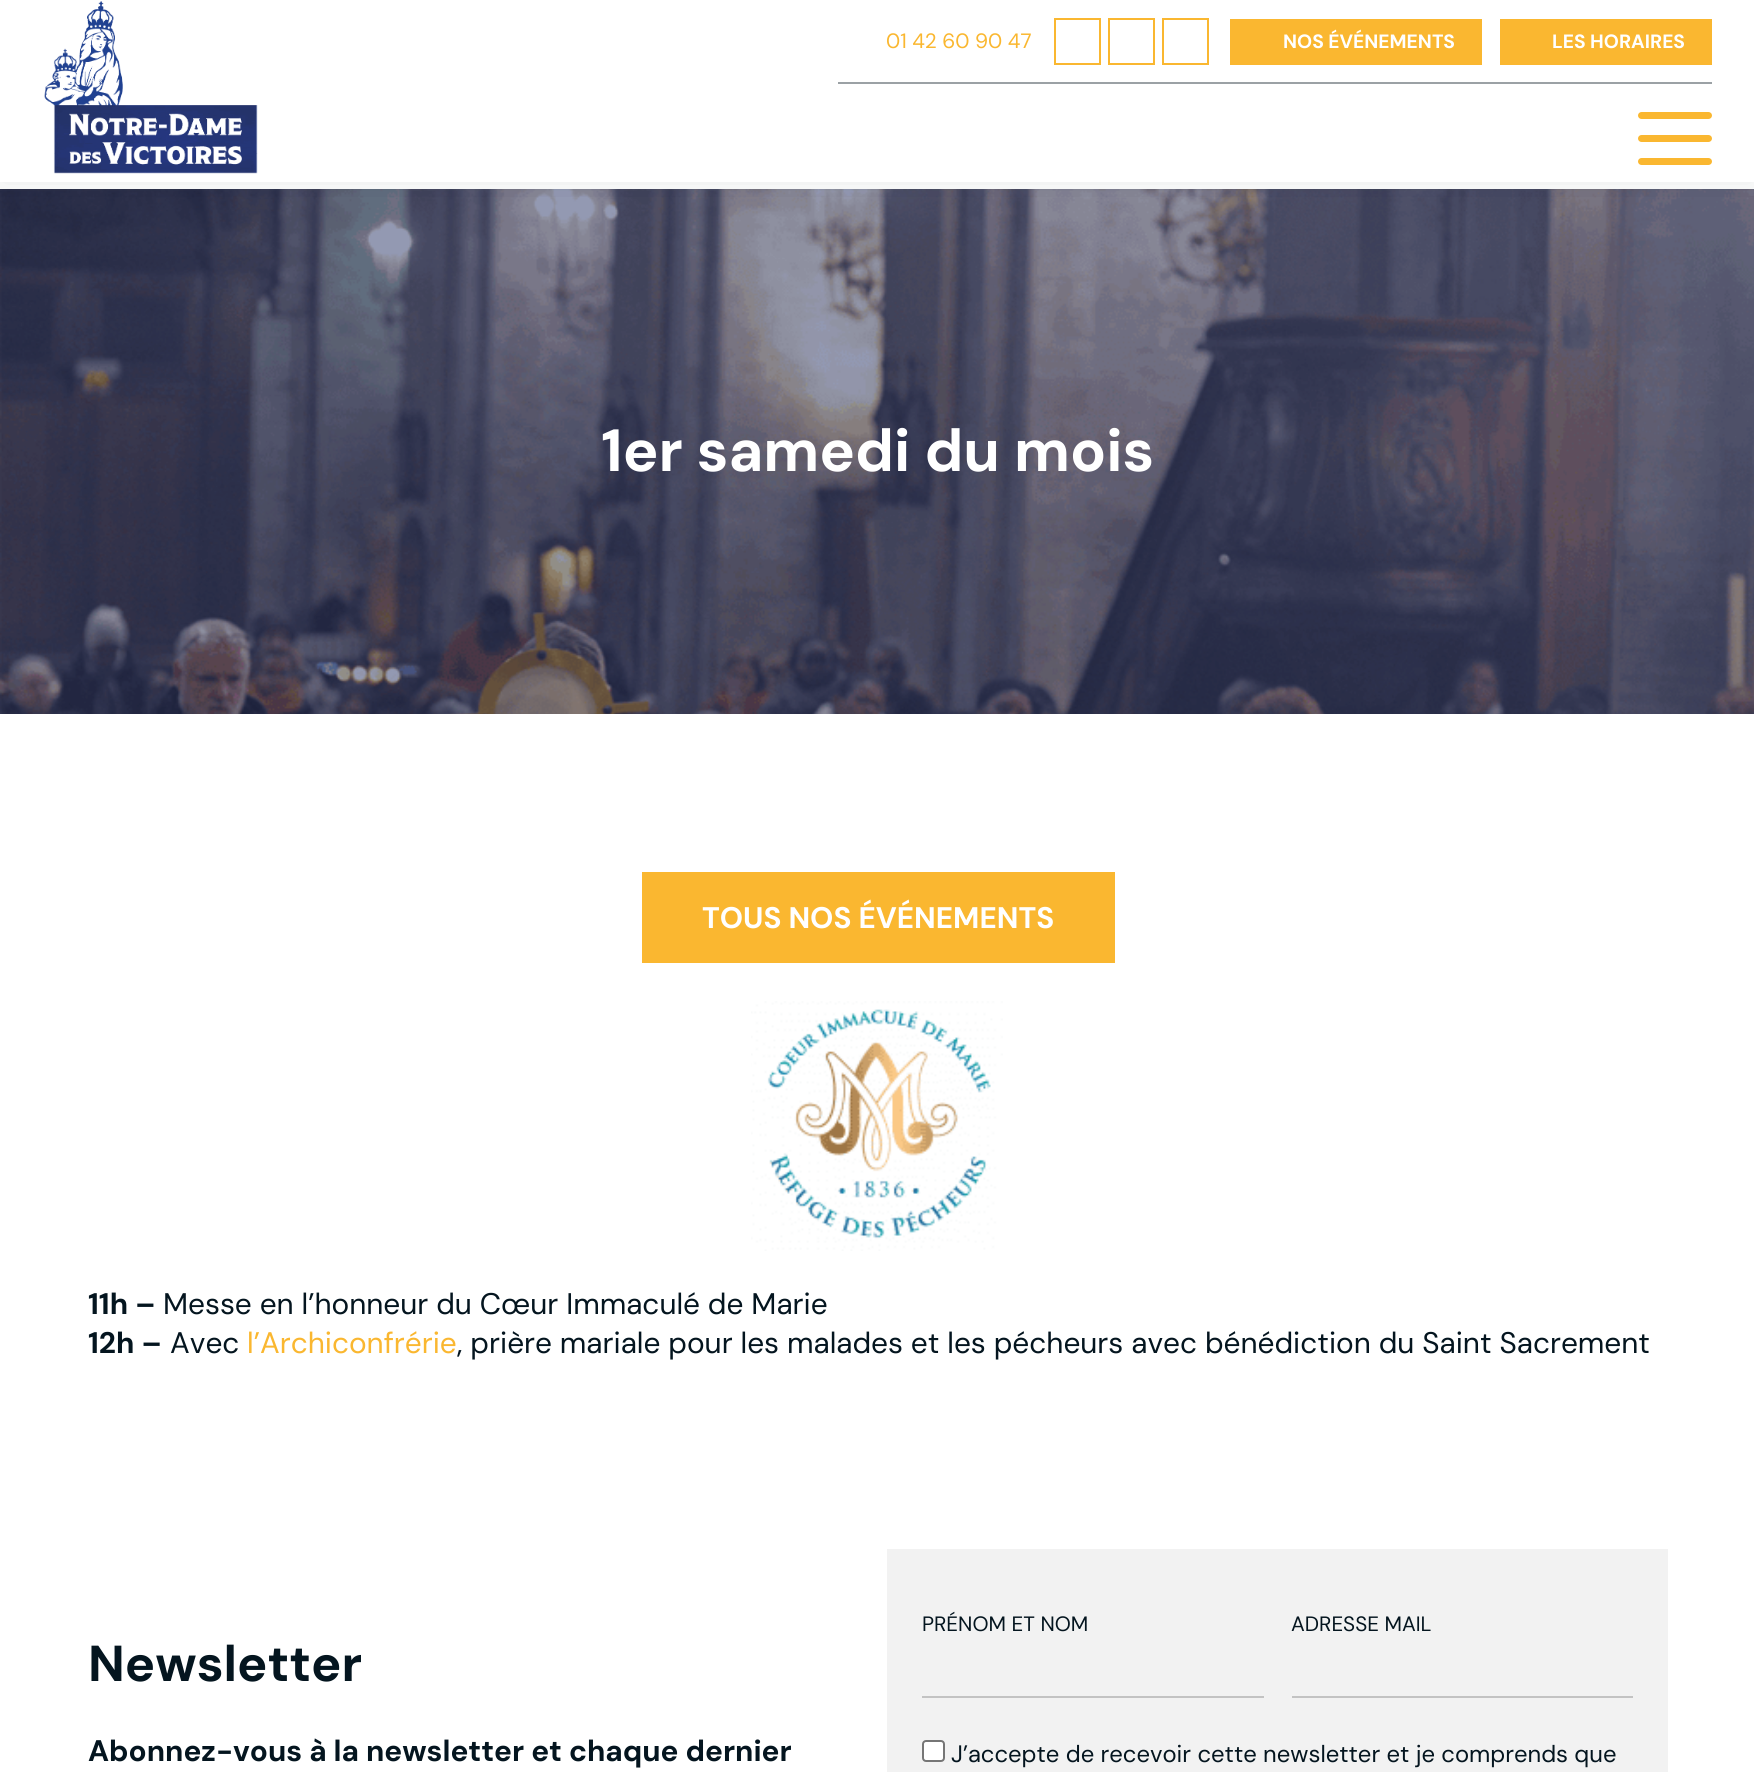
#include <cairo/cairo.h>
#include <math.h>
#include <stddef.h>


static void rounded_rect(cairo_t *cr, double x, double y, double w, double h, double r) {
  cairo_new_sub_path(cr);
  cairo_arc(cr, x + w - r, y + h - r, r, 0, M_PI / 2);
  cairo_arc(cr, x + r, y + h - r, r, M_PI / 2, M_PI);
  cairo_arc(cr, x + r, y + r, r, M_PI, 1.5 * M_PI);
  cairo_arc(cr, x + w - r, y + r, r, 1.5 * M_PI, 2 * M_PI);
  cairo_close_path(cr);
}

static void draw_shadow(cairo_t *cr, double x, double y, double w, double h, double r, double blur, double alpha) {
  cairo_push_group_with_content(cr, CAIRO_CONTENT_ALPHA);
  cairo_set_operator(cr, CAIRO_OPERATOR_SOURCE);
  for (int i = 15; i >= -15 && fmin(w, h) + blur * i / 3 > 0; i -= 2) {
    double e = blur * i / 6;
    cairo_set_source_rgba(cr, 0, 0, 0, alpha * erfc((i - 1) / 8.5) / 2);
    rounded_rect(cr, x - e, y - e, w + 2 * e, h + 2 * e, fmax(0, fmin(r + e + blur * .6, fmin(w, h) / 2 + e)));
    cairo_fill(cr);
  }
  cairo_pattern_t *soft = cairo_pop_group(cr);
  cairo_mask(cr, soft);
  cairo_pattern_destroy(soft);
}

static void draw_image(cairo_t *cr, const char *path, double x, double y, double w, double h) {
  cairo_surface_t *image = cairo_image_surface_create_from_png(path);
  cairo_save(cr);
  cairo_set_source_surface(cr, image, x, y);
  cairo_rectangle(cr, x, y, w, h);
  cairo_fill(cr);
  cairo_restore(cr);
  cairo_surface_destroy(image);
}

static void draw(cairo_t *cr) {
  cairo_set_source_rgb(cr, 1, 1, 1);
  cairo_paint(cr);
  draw_image(cr, "images/2.png", 0, 189, 1754, 525);
  cairo_save(cr);
  cairo_rectangle(cr, 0, 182, 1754, 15);
  cairo_clip(cr);
  cairo_set_source_rgb(cr, 4 / 255.0, 21 / 255.0, 31 / 255.0);
  draw_shadow(cr, 0, 0, 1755, 182, 0, 17.5, 0.1);
  cairo_restore(cr);
  draw_image(cr, "images/1.png", 44, 1, 214, 173);
  cairo_set_source_rgb(cr, 155 / 255.0, 161 / 255.0, 165 / 255.0);
  cairo_rectangle(cr, 838, 82, 874, 2);
  cairo_fill(cr);
  cairo_rectangle(cr, 1055, 19, 45, 45);
  cairo_set_source_rgb(cr, 250 / 255.0, 183 / 255.0, 48 / 255.0);
  cairo_stroke(cr);
  cairo_rectangle(cr, 1109, 19, 45, 45);
  cairo_stroke(cr);
  cairo_rectangle(cr, 1163, 19, 45, 45);
  cairo_stroke(cr);
  cairo_rectangle(cr, 1230, 19, 252, 46);
  cairo_fill(cr);
  cairo_rectangle(cr, 1500, 19, 212, 46);
  cairo_fill(cr);
  rounded_rect(cr, 1638, 112, 74, 7, 3.5);
  cairo_fill(cr);
  rounded_rect(cr, 1638, 135, 74, 7, 3.5);
  cairo_fill(cr);
  rounded_rect(cr, 1638, 158, 74, 7, 3.5);
  cairo_fill(cr);
  cairo_rectangle(cr, 642, 872, 473, 91);
  cairo_fill(cr);
  draw_image(cr, "images/3.png", 751, 1001, 252, 250);
  cairo_set_source_rgb(cr, 242 / 255.0, 242 / 255.0, 242 / 255.0);
  cairo_rectangle(cr, 887, 1549, 781, 223);
  cairo_fill(cr);
  cairo_set_source_rgb(cr, 195 / 255.0, 195 / 255.0, 195 / 255.0);
  cairo_rectangle(cr, 922, 1696, 342, 2);
  cairo_fill(cr);
  cairo_rectangle(cr, 1292, 1696, 341, 2);
  cairo_fill(cr);
  cairo_set_source_rgb(cr, 1, 1, 1);
  rounded_rect(cr, 923, 1741, 21, 20, 3);
  cairo_fill_preserve(cr);
  cairo_set_source_rgb(cr, 118 / 255.0, 118 / 255.0, 118 / 255.0);
  cairo_stroke(cr);
  cairo_select_font_face(cr, "DM Sans", CAIRO_FONT_SLANT_NORMAL, CAIRO_FONT_WEIGHT_NORMAL);
  cairo_set_font_size(cr, 20.75);
  cairo_set_source_rgb(cr, 250 / 255.0, 183 / 255.0, 48 / 255.0);
  cairo_move_to(cr, 886, 48);
  cairo_show_text(cr, "01 42 60 90 47");
  cairo_select_font_face(cr, "DM Sans", CAIRO_FONT_SLANT_NORMAL, CAIRO_FONT_WEIGHT_BOLD);
  cairo_set_font_size(cr, 19.25);
  cairo_set_source_rgb(cr, 1, 1, 1);
  cairo_move_to(cr, 1283, 48);
  cairo_show_text(cr, "NOS ÉVÉNEMENTS");
  cairo_move_to(cr, 1552, 48);
  cairo_show_text(cr, "LES HORAIRES");
  cairo_set_font_size(cr, 59.5);
  cairo_move_to(cr, 601, 471);
  cairo_show_text(cr, "1er samedi du mois");
  cairo_set_font_size(cr, 29.75);
  cairo_move_to(cr, 702, 928);
  cairo_show_text(cr, "TOUS NOS ÉVÉNEMENTS");
  cairo_set_source_rgb(cr, 4 / 255.0, 21 / 255.0, 31 / 255.0);
  cairo_move_to(cr, 88, 1314);
  cairo_show_text(cr, "11h –");
  cairo_select_font_face(cr, "DM Sans", CAIRO_FONT_SLANT_NORMAL, CAIRO_FONT_WEIGHT_NORMAL);
  cairo_move_to(cr, 163, 1314);
  cairo_show_text(cr, "Messe en l’honneur du Cœur Immaculé de Marie");
  cairo_select_font_face(cr, "DM Sans", CAIRO_FONT_SLANT_NORMAL, CAIRO_FONT_WEIGHT_BOLD);
  cairo_move_to(cr, 88, 1353);
  cairo_show_text(cr, "12h –");
  cairo_select_font_face(cr, "DM Sans", CAIRO_FONT_SLANT_NORMAL, CAIRO_FONT_WEIGHT_NORMAL);
  cairo_move_to(cr, 170, 1353);
  cairo_show_text(cr, "Avec");
  cairo_set_source_rgb(cr, 250 / 255.0, 183 / 255.0, 48 / 255.0);
  cairo_move_to(cr, 247, 1353);
  cairo_show_text(cr, "l’Archiconfrérie");
  cairo_set_source_rgb(cr, 4 / 255.0, 21 / 255.0, 31 / 255.0);
  cairo_move_to(cr, 457, 1353);
  cairo_show_text(cr, ", prière mariale pour les malades et les pécheurs avec bénédiction du Saint Sacrement");
  cairo_select_font_face(cr, "DM Sans", CAIRO_FONT_SLANT_NORMAL, CAIRO_FONT_WEIGHT_BOLD);
  cairo_set_font_size(cr, 50.5);
  cairo_move_to(cr, 88, 1681);
  cairo_show_text(cr, "Newsletter");
  cairo_set_font_size(cr, 29.75);
  cairo_move_to(cr, 88, 1761);
  cairo_show_text(cr, "Abonnez-vous à la newsletter et chaque dernier");
  cairo_select_font_face(cr, "DM Sans", CAIRO_FONT_SLANT_NORMAL, CAIRO_FONT_WEIGHT_NORMAL);
  cairo_set_font_size(cr, 20.75);
  cairo_move_to(cr, 922, 1631);
  cairo_show_text(cr, "PRÉNOM ET NOM");
  cairo_move_to(cr, 1291, 1631);
  cairo_show_text(cr, "ADRESSE MAIL");
  cairo_set_font_size(cr, 23.8);
  cairo_move_to(cr, 951, 1762);
  cairo_show_text(cr, "J’accepte de recevoir cette newsletter et je comprends que");
}

int main(void) {
  cairo_surface_t *surface = cairo_image_surface_create(CAIRO_FORMAT_RGB24, 1754, 1772);
  cairo_t *cr = cairo_create(surface);
  cairo_font_options_t *options = cairo_font_options_create();
  cairo_font_options_set_hint_metrics(options, CAIRO_HINT_METRICS_OFF);
  cairo_font_options_set_hint_style(options, CAIRO_HINT_STYLE_NONE);
  cairo_set_font_options(cr, options);
  cairo_set_miter_limit(cr, 4);
  draw(cr);
  cairo_surface_write_to_png(surface, "out.png");
  cairo_font_options_destroy(options);
  cairo_destroy(cr);
  cairo_surface_destroy(surface);
  return 0;
}
